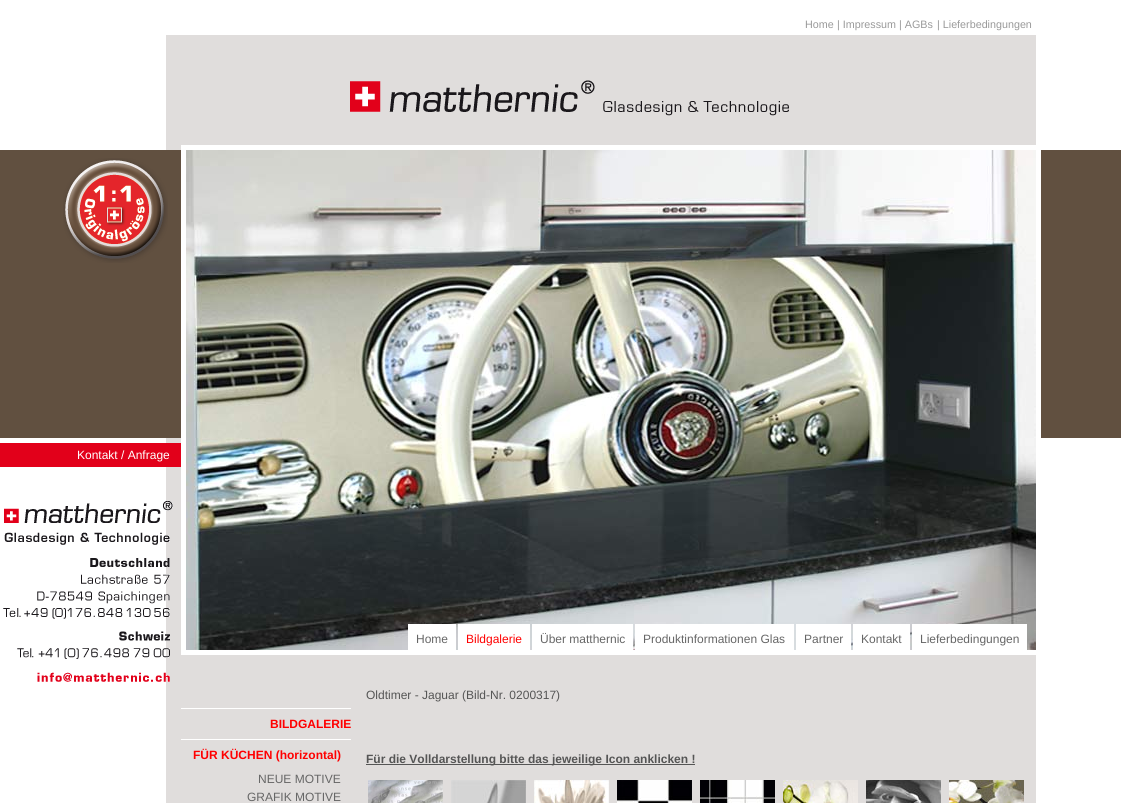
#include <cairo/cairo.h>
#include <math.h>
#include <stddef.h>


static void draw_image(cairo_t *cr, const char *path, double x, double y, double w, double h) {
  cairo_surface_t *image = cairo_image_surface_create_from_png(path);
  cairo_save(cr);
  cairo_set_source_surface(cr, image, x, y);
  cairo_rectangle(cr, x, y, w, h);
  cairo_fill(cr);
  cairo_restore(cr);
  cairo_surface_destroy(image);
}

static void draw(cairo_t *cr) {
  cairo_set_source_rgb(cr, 1, 1, 1);
  cairo_paint(cr);
  cairo_set_source_rgb(cr, 224 / 255.0, 221 / 255.0, 220 / 255.0);
  cairo_rectangle(cr, 166, 35, 20, 768);
  cairo_fill(cr);
  cairo_set_source_rgb(cr, 97 / 255.0, 80 / 255.0, 64 / 255.0);
  cairo_rectangle(cr, 0, 150, 1121, 288);
  cairo_fill(cr);
  cairo_set_source_rgb(cr, 224 / 255.0, 221 / 255.0, 220 / 255.0);
  cairo_rectangle(cr, 186, 35, 850, 768);
  cairo_fill(cr);
  draw_image(cr, "images/1.png", 350, 80, 439, 36);
  draw_image(cr, "images/2.png", 3, 501, 170, 181);
  cairo_rectangle(cr, 183.5, 147.5, 855, 505);
  cairo_set_source_rgb(cr, 1, 1, 1);
  cairo_set_line_width(cr, 5);
  cairo_stroke(cr);
  draw_image(cr, "images/3.png", 63, 158, 105, 105);
  draw_image(cr, "images/4.png", 186, 150, 850, 500);
  cairo_rectangle(cr, 408, 624, 48, 26);
  cairo_fill(cr);
  cairo_rectangle(cr, 458, 624, 72, 26);
  cairo_fill(cr);
  cairo_rectangle(cr, 532, 624, 101, 26);
  cairo_fill(cr);
  cairo_rectangle(cr, 635, 624, 159, 26);
  cairo_fill(cr);
  cairo_rectangle(cr, 796, 624, 55, 26);
  cairo_fill(cr);
  cairo_rectangle(cr, 853, 624, 57, 26);
  cairo_fill(cr);
  cairo_rectangle(cr, 912, 624, 115, 26);
  cairo_fill(cr);
  cairo_rectangle(cr, 181, 708, 170, 1);
  cairo_fill(cr);
  cairo_rectangle(cr, 181, 739, 170, 1);
  cairo_fill(cr);
  cairo_set_source_rgb(cr, 85 / 255.0, 85 / 255.0, 85 / 255.0);
  cairo_rectangle(cr, 366, 764, 329, 1);
  cairo_fill(cr);
  draw_image(cr, "images/5.png", 368, 780, 75, 23);
  draw_image(cr, "images/6.png", 451, 780, 75, 23);
  draw_image(cr, "images/7.png", 534, 780, 75, 23);
  draw_image(cr, "images/8.png", 617, 780, 75, 23);
  draw_image(cr, "images/9.png", 700, 780, 75, 23);
  draw_image(cr, "images/10.png", 783, 780, 75, 23);
  draw_image(cr, "images/11.png", 866, 780, 75, 23);
  draw_image(cr, "images/12.png", 949, 780, 75, 23);
  cairo_set_source_rgb(cr, 226 / 255.0, 0, 26 / 255.0);
  cairo_rectangle(cr, 0, 443, 181, 24);
  cairo_fill(cr);
  cairo_select_font_face(cr, "Liberation Sans", CAIRO_FONT_SLANT_NORMAL, CAIRO_FONT_WEIGHT_NORMAL);
  cairo_set_font_size(cr, 10.75);
  cairo_set_source_rgb(cr, 153 / 255.0, 153 / 255.0, 153 / 255.0);
  cairo_move_to(cr, 805, 28);
  cairo_show_text(cr, "Home");
  cairo_move_to(cr, 837, 28);
  cairo_show_text(cr, "| Impressum");
  cairo_move_to(cr, 899, 28);
  cairo_show_text(cr, "| AGBs");
  cairo_move_to(cr, 937, 28);
  cairo_show_text(cr, "| Lieferbedingungen");
  cairo_set_font_size(cr, 12);
  cairo_set_source_rgb(cr, 1, 1, 1);
  cairo_move_to(cr, 77, 459);
  cairo_show_text(cr, "Kontakt / Anfrage");
  cairo_set_source_rgb(cr, 102 / 255.0, 102 / 255.0, 102 / 255.0);
  cairo_move_to(cr, 416, 643);
  cairo_show_text(cr, "Home");
  cairo_set_source_rgb(cr, 1, 0, 0);
  cairo_move_to(cr, 466, 643);
  cairo_show_text(cr, "Bildgalerie");
  cairo_set_source_rgb(cr, 102 / 255.0, 102 / 255.0, 102 / 255.0);
  cairo_move_to(cr, 540, 643);
  cairo_show_text(cr, "Über matthernic");
  cairo_move_to(cr, 643, 643);
  cairo_show_text(cr, "Produktinformationen Glas");
  cairo_move_to(cr, 804, 643);
  cairo_show_text(cr, "Partner");
  cairo_move_to(cr, 861, 643);
  cairo_show_text(cr, "Kontakt");
  cairo_move_to(cr, 920, 643);
  cairo_show_text(cr, "Lieferbedingungen");
  cairo_select_font_face(cr, "Liberation Sans", CAIRO_FONT_SLANT_NORMAL, CAIRO_FONT_WEIGHT_BOLD);
  cairo_set_source_rgb(cr, 1, 0, 0);
  cairo_move_to(cr, 270, 728);
  cairo_show_text(cr, "BILDGALERIE");
  cairo_move_to(cr, 193, 759);
  cairo_show_text(cr, "FÜR KÜCHEN (horizontal)");
  cairo_select_font_face(cr, "Liberation Sans", CAIRO_FONT_SLANT_NORMAL, CAIRO_FONT_WEIGHT_NORMAL);
  cairo_set_source_rgb(cr, 102 / 255.0, 102 / 255.0, 102 / 255.0);
  cairo_move_to(cr, 258, 783);
  cairo_show_text(cr, "NEUE MOTIVE");
  cairo_move_to(cr, 247, 801);
  cairo_show_text(cr, "GRAFIK MOTIVE");
  cairo_set_source_rgb(cr, 85 / 255.0, 85 / 255.0, 85 / 255.0);
  cairo_move_to(cr, 366, 699);
  cairo_show_text(cr, "Oldtimer - Jaguar (Bild-Nr. 0200317)");
  cairo_select_font_face(cr, "Liberation Sans", CAIRO_FONT_SLANT_NORMAL, CAIRO_FONT_WEIGHT_BOLD);
  cairo_move_to(cr, 366, 763);
  cairo_show_text(cr, "Für die Volldarstellung bitte das jeweilige Icon anklicken !");
}

int main(void) {
  cairo_surface_t *surface = cairo_image_surface_create(CAIRO_FORMAT_RGB24, 1121, 803);
  cairo_t *cr = cairo_create(surface);
  cairo_font_options_t *options = cairo_font_options_create();
  cairo_font_options_set_hint_metrics(options, CAIRO_HINT_METRICS_OFF);
  cairo_font_options_set_hint_style(options, CAIRO_HINT_STYLE_NONE);
  cairo_set_font_options(cr, options);
  cairo_set_miter_limit(cr, 4);
  draw(cr);
  cairo_surface_write_to_png(surface, "out.png");
  cairo_font_options_destroy(options);
  cairo_destroy(cr);
  cairo_surface_destroy(surface);
  return 0;
}
